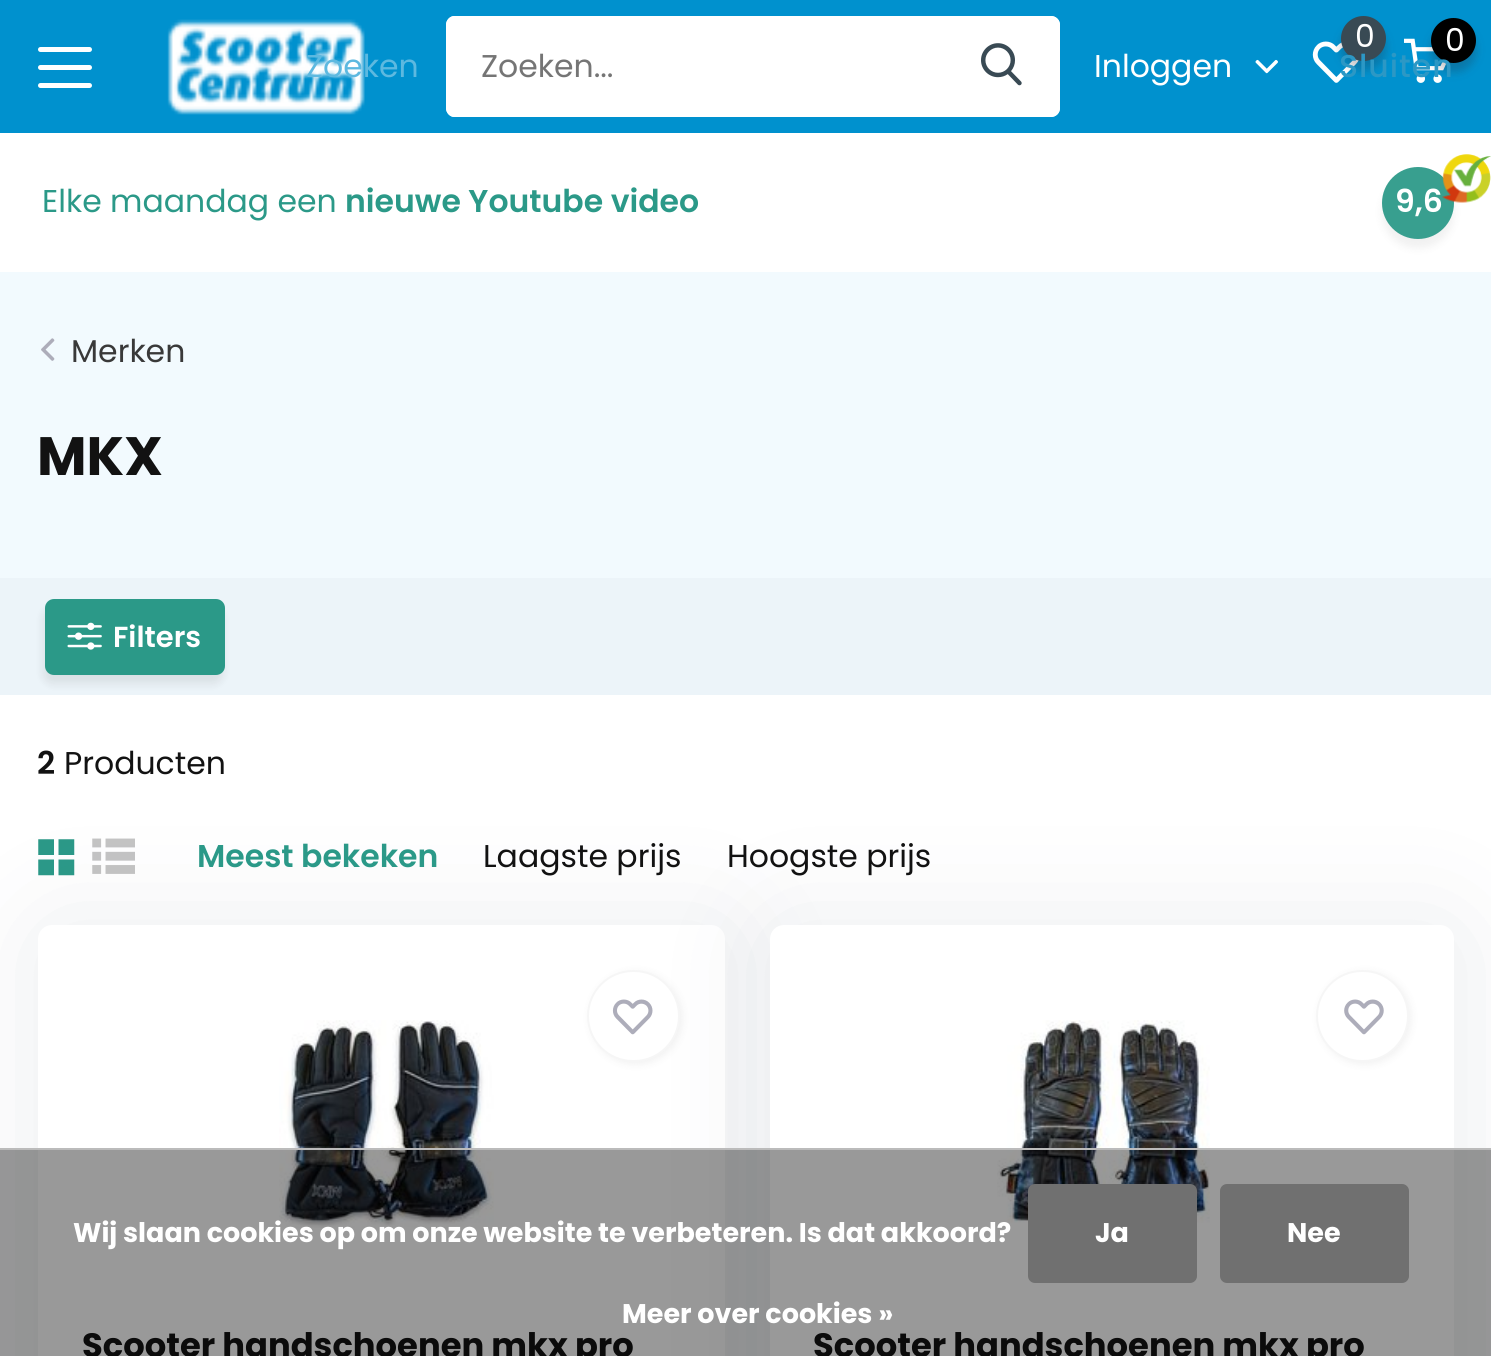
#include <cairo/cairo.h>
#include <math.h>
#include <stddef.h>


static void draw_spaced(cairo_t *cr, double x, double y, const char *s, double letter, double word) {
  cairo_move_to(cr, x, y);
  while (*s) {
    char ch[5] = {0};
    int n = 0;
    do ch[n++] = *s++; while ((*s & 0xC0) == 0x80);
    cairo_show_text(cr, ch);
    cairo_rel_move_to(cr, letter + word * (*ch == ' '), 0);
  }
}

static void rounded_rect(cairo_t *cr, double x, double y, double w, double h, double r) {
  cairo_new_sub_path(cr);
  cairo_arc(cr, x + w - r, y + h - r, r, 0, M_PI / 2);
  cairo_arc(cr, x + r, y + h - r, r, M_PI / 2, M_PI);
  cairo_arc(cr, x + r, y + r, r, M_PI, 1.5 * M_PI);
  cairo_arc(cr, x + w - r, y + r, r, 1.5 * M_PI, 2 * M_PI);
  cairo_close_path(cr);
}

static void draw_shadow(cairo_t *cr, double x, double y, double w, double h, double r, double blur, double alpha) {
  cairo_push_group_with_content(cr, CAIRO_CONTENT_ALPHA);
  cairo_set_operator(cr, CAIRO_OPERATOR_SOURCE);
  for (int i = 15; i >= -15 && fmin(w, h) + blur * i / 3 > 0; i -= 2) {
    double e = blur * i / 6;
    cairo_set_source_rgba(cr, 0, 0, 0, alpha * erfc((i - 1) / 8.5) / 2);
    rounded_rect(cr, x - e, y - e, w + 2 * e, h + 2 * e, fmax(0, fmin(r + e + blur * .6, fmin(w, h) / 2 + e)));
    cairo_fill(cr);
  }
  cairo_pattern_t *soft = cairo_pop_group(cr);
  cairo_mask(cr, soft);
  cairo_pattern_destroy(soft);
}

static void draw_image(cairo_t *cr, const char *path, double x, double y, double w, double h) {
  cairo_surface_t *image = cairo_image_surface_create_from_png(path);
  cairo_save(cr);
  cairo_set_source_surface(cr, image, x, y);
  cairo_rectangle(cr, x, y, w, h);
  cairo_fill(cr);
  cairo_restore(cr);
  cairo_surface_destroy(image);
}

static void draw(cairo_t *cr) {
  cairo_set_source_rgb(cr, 1, 1, 1);
  cairo_paint(cr);
  cairo_set_source_rgb(cr, 0, 145 / 255.0, 206 / 255.0);
  cairo_rectangle(cr, 0, 0, 1491, 133);
  cairo_fill(cr);
  cairo_set_source_rgb(cr, 1, 1, 1);
  rounded_rect(cr, 38, 47, 54, 5, 2.5);
  cairo_fill(cr);
  rounded_rect(cr, 38, 65, 54, 5, 2.5);
  cairo_fill(cr);
  rounded_rect(cr, 38, 83, 54, 5, 2.5);
  cairo_fill(cr);
  draw_image(cr, "images/1.png", 167, 19, 198, 96);
  draw_image(cr, "images/2.png", 1312, 41, 47, 42);
  cairo_set_source_rgb(cr, 40 / 255.0, 40 / 255.0, 48 / 255.0);
  draw_shadow(cr, 1341, 25, 45, 45, 22.5, 4.5, 0.25);
  cairo_set_source_rgb(cr, 57 / 255.0, 74 / 255.0, 84 / 255.0);
  cairo_arc(cr, 1363.5, 38.5, 22.5, 0, 2 * M_PI);
  cairo_fill(cr);
  draw_image(cr, "images/3.png", 1404, 38, 43, 45);
  cairo_set_source_rgb(cr, 40 / 255.0, 40 / 255.0, 48 / 255.0);
  draw_shadow(cr, 1431, 27, 45, 45, 22.5, 4.5, 0.25);
  cairo_set_source_rgb(cr, 0, 0, 0);
  cairo_arc(cr, 1453.5, 40.5, 22.5, 0, 2 * M_PI);
  cairo_fill(cr);
  cairo_set_source_rgb(cr, 1, 1, 1);
  cairo_new_path(cr);
  cairo_move_to(cr, 455, 16);
  cairo_line_to(cr, 947, 16);
  cairo_line_to(cr, 947, 117);
  cairo_line_to(cr, 455, 117);
  cairo_curve_to(cr, 450, 117, 446, 113, 446, 108);
  cairo_line_to(cr, 446, 25);
  cairo_curve_to(cr, 446, 20, 450, 16, 455, 16);
  cairo_close_path(cr);
  cairo_fill(cr);
  cairo_set_fill_rule(cr, CAIRO_FILL_RULE_EVEN_ODD);
  cairo_new_path(cr);
  cairo_move_to(cr, 454, 16);
  cairo_line_to(cr, 947, 16);
  cairo_line_to(cr, 947, 117);
  cairo_line_to(cr, 454, 117);
  cairo_curve_to(cr, 450, 117, 446, 113, 446, 108);
  cairo_line_to(cr, 446, 25);
  cairo_curve_to(cr, 446, 20, 450, 16, 454, 16);
  cairo_close_path(cr);
  cairo_move_to(cr, 454, 18);
  cairo_line_to(cr, 947, 18);
  cairo_line_to(cr, 947, 115);
  cairo_line_to(cr, 454, 115);
  cairo_curve_to(cr, 451, 115, 448, 112, 448, 108);
  cairo_line_to(cr, 448, 25);
  cairo_curve_to(cr, 448, 21, 451, 18, 454, 18);
  cairo_close_path(cr);
  cairo_fill(cr);
  cairo_new_path(cr);
  cairo_move_to(cr, 947, 16);
  cairo_line_to(cr, 1051, 16);
  cairo_curve_to(cr, 1056, 16, 1060, 20, 1060, 25);
  cairo_line_to(cr, 1060, 108);
  cairo_curve_to(cr, 1060, 113, 1056, 117, 1051, 117);
  cairo_line_to(cr, 947, 117);
  cairo_close_path(cr);
  cairo_fill(cr);
  cairo_new_path(cr);
  cairo_move_to(cr, 947, 16);
  cairo_line_to(cr, 1051, 16);
  cairo_curve_to(cr, 1056, 16, 1060, 20, 1060, 25);
  cairo_line_to(cr, 1060, 108);
  cairo_curve_to(cr, 1060, 113, 1056, 117, 1051, 117);
  cairo_line_to(cr, 947, 117);
  cairo_close_path(cr);
  cairo_move_to(cr, 947, 18);
  cairo_line_to(cr, 1051, 18);
  cairo_curve_to(cr, 1054, 18, 1058, 21, 1058, 25);
  cairo_line_to(cr, 1058, 108);
  cairo_curve_to(cr, 1058, 112, 1054, 115, 1051, 115);
  cairo_line_to(cr, 947, 115);
  cairo_close_path(cr);
  cairo_fill(cr);
  draw_image(cr, "images/4.png", 981, 43, 41, 43);
  draw_image(cr, "images/5.png", 1255, 59, 23, 15);
  cairo_set_source_rgb(cr, 0, 0, 0);
  draw_shadow(cr, 1382, 176, 72, 72, 36, 4.5, 0.06);
  cairo_set_source_rgb(cr, 56 / 255.0, 159 / 255.0, 143 / 255.0);
  cairo_arc(cr, 1418, 203, 36, 0, 2 * M_PI);
  cairo_fill(cr);
  draw_image(cr, "images/6.png", 1442, 154, 49, 49);
  cairo_set_source_rgb(cr, 242 / 255.0, 250 / 255.0, 254 / 255.0);
  cairo_rectangle(cr, 0, 272, 1491, 306);
  cairo_fill(cr);
  draw_image(cr, "images/7.png", 41, 338, 14, 23);
  cairo_set_source_rgb(cr, 236 / 255.0, 244 / 255.0, 249 / 255.0);
  cairo_rectangle(cr, 0, 578, 1491, 117);
  cairo_fill(cr);
  cairo_set_source_rgb(cr, 0, 0, 0);
  draw_shadow(cr, 43, 608, 180, 76, 9, 4.5, 0.08);
  cairo_set_source_rgb(cr, 43 / 255.0, 153 / 255.0, 136 / 255.0);
  rounded_rect(cr, 45, 599, 180, 76, 9);
  cairo_fill(cr);
  draw_image(cr, "images/8.png", 67, 622, 35, 28);
  draw_image(cr, "images/9.png", 38, 839, 37, 37);
  draw_image(cr, "images/10.png", 92, 838, 43, 36);
  cairo_set_source_rgb(cr, 38 / 255.0, 63 / 255.0, 77 / 255.0);
  draw_shadow(cr, 43, 929, 686, 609, 14, 56, 0.1);
  cairo_set_source_rgb(cr, 1, 1, 1);
  rounded_rect(cr, 38, 925, 687, 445, 14);
  cairo_fill(cr);
  draw_image(cr, "images/11.png", 279, 1020, 215, 208);
  cairo_set_source_rgb(cr, 0, 0, 0);
  draw_shadow(cr, 590, 972, 92, 92, 46, 4.5, 0.06);
  cairo_set_source_rgb(cr, 38 / 255.0, 63 / 255.0, 77 / 255.0);
  draw_shadow(cr, 774, 929, 684, 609, 14, 56, 0.1);
  cairo_set_source_rgb(cr, 1, 1, 1);
  rounded_rect(cr, 588, 971, 91, 90, 45);
  cairo_fill_preserve(cr);
  cairo_set_source_rgb(cr, 246 / 255.0, 246 / 255.0, 246 / 255.0);
  cairo_stroke(cr);
  draw_image(cr, "images/12.png", 612, 999, 41, 36);
  cairo_set_source_rgb(cr, 1, 1, 1);
  rounded_rect(cr, 770, 925, 684, 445, 14);
  cairo_fill(cr);
  draw_image(cr, "images/13.png", 997, 1020, 213, 203);
  cairo_set_source_rgb(cr, 0, 0, 0);
  draw_shadow(cr, 1319, 972, 92, 92, 46, 4.5, 0.06);
  cairo_set_source_rgb(cr, 1, 1, 1);
  rounded_rect(cr, 1317, 971, 91, 90, 45);
  cairo_fill_preserve(cr);
  cairo_set_source_rgb(cr, 246 / 255.0, 246 / 255.0, 246 / 255.0);
  cairo_stroke(cr);
  draw_image(cr, "images/14.png", 1344, 999, 40, 36);
  cairo_set_source_rgb(cr, 187 / 255.0, 187 / 255.0, 187 / 255.0);
  cairo_rectangle(cr, 0, 1148, 1491, 2);
  cairo_fill(cr);
  cairo_select_font_face(cr, "Poppins", CAIRO_FONT_SLANT_NORMAL, CAIRO_FONT_WEIGHT_NORMAL);
  cairo_set_font_size(cr, 31.5);
  cairo_set_source_rgb(cr, 1, 1, 1);
  cairo_move_to(cr, 1355, 47);
  cairo_show_text(cr, "0");
  cairo_move_to(cr, 1445, 51);
  cairo_show_text(cr, "0");
  cairo_set_source_rgb(cr, 117 / 255.0, 117 / 255.0, 117 / 255.0);
  cairo_move_to(cr, 481, 77);
  cairo_show_text(cr, "Zoeken...");
  cairo_set_source_rgb(cr, 1, 1, 1);
  cairo_move_to(cr, 1094, 77);
  cairo_show_text(cr, "Inloggen");
  cairo_set_source_rgb(cr, 93 / 255.0, 185 / 255.0, 224 / 255.0);
  cairo_move_to(cr, 306, 77);
  cairo_show_text(cr, "Zoeken");
  cairo_select_font_face(cr, "Poppins Medium", CAIRO_FONT_SLANT_NORMAL, CAIRO_FONT_WEIGHT_NORMAL);
  cairo_set_source_rgb(cr, 44 / 255.0, 152 / 255.0, 197 / 255.0);
  draw_spaced(cr, 1339, 77, "Sluiten", 1, 0);
  cairo_select_font_face(cr, "Poppins", CAIRO_FONT_SLANT_NORMAL, CAIRO_FONT_WEIGHT_NORMAL);
  cairo_set_source_rgb(cr, 43 / 255.0, 153 / 255.0, 136 / 255.0);
  cairo_move_to(cr, 42, 212);
  cairo_show_text(cr, "Elke maandag een");
  cairo_select_font_face(cr, "Poppins SemiBold", CAIRO_FONT_SLANT_NORMAL, CAIRO_FONT_WEIGHT_NORMAL);
  cairo_move_to(cr, 345, 212);
  cairo_show_text(cr, "nieuwe Youtube video");
  cairo_set_source_rgb(cr, 1, 1, 1);
  cairo_move_to(cr, 1395, 212);
  cairo_show_text(cr, "9,6");
  cairo_select_font_face(cr, "Poppins", CAIRO_FONT_SLANT_NORMAL, CAIRO_FONT_WEIGHT_NORMAL);
  cairo_set_source_rgb(cr, 57 / 255.0, 57 / 255.0, 57 / 255.0);
  cairo_move_to(cr, 71, 362);
  cairo_show_text(cr, "Merken");
  cairo_select_font_face(cr, "Poppins", CAIRO_FONT_SLANT_NORMAL, CAIRO_FONT_WEIGHT_BOLD);
  cairo_set_font_size(cr, 54);
  cairo_set_source_rgb(cr, 18 / 255.0, 18 / 255.0, 18 / 255.0);
  cairo_move_to(cr, 37, 475);
  cairo_show_text(cr, "MKX");
  cairo_select_font_face(cr, "Poppins SemiBold", CAIRO_FONT_SLANT_NORMAL, CAIRO_FONT_WEIGHT_NORMAL);
  cairo_set_font_size(cr, 29);
  cairo_set_source_rgb(cr, 1, 1, 1);
  cairo_move_to(cr, 113, 647);
  cairo_show_text(cr, "Filters");
  cairo_set_font_size(cr, 31.5);
  cairo_set_source_rgb(cr, 18 / 255.0, 18 / 255.0, 18 / 255.0);
  cairo_move_to(cr, 37, 774);
  cairo_show_text(cr, "2");
  cairo_select_font_face(cr, "Poppins", CAIRO_FONT_SLANT_NORMAL, CAIRO_FONT_WEIGHT_NORMAL);
  cairo_move_to(cr, 64, 774);
  cairo_show_text(cr, "Producten");
  cairo_select_font_face(cr, "Poppins SemiBold", CAIRO_FONT_SLANT_NORMAL, CAIRO_FONT_WEIGHT_NORMAL);
  cairo_set_source_rgb(cr, 43 / 255.0, 153 / 255.0, 136 / 255.0);
  cairo_move_to(cr, 197, 867);
  cairo_show_text(cr, "Meest bekeken");
  cairo_select_font_face(cr, "Poppins", CAIRO_FONT_SLANT_NORMAL, CAIRO_FONT_WEIGHT_NORMAL);
  cairo_set_source_rgb(cr, 18 / 255.0, 18 / 255.0, 18 / 255.0);
  cairo_move_to(cr, 483, 867);
  cairo_show_text(cr, "Laagste prijs");
  cairo_move_to(cr, 727, 867);
  cairo_show_text(cr, "Hoogste prijs");
  cairo_select_font_face(cr, "Poppins", CAIRO_FONT_SLANT_NORMAL, CAIRO_FONT_WEIGHT_BOLD);
  cairo_set_font_size(cr, 33.75);
  cairo_move_to(cr, 82, 1357);
  cairo_show_text(cr, "Scooter handschoenen mkx pro");
  cairo_move_to(cr, 813, 1357);
  cairo_show_text(cr, "Scooter handschoenen mkx pro");
  cairo_set_source_rgba(cr, 0, 0, 0, 0.4);
  cairo_rectangle(cr, 0, 1150, 1491, 206);
  cairo_fill(cr);
  cairo_set_font_size(cr, 27);
  cairo_set_source_rgb(cr, 1, 1, 1);
  cairo_move_to(cr, 73, 1242);
  cairo_show_text(cr, "Wij slaan cookies op om onze website te verbeteren. Is dat akkoord?");
  cairo_set_source_rgb(cr, 112 / 255.0, 112 / 255.0, 112 / 255.0);
  rounded_rect(cr, 1028, 1184, 169, 99, 7);
  cairo_fill(cr);
  cairo_set_source_rgb(cr, 1, 1, 1);
  cairo_move_to(cr, 1095, 1242);
  cairo_show_text(cr, "Ja");
  cairo_set_source_rgb(cr, 112 / 255.0, 112 / 255.0, 112 / 255.0);
  rounded_rect(cr, 1220, 1184, 189, 99, 7);
  cairo_fill(cr);
  cairo_set_source_rgb(cr, 1, 1, 1);
  cairo_move_to(cr, 1287, 1242);
  cairo_show_text(cr, "Nee");
  cairo_move_to(cr, 622, 1323);
  cairo_show_text(cr, "Meer over cookies »");
}

int main(void) {
  cairo_surface_t *surface = cairo_image_surface_create(CAIRO_FORMAT_RGB24, 1491, 1356);
  cairo_t *cr = cairo_create(surface);
  cairo_font_options_t *options = cairo_font_options_create();
  cairo_font_options_set_hint_metrics(options, CAIRO_HINT_METRICS_OFF);
  cairo_font_options_set_hint_style(options, CAIRO_HINT_STYLE_NONE);
  cairo_set_font_options(cr, options);
  cairo_set_miter_limit(cr, 4);
  draw(cr);
  cairo_surface_write_to_png(surface, "out.png");
  cairo_font_options_destroy(options);
  cairo_destroy(cr);
  cairo_surface_destroy(surface);
  return 0;
}
